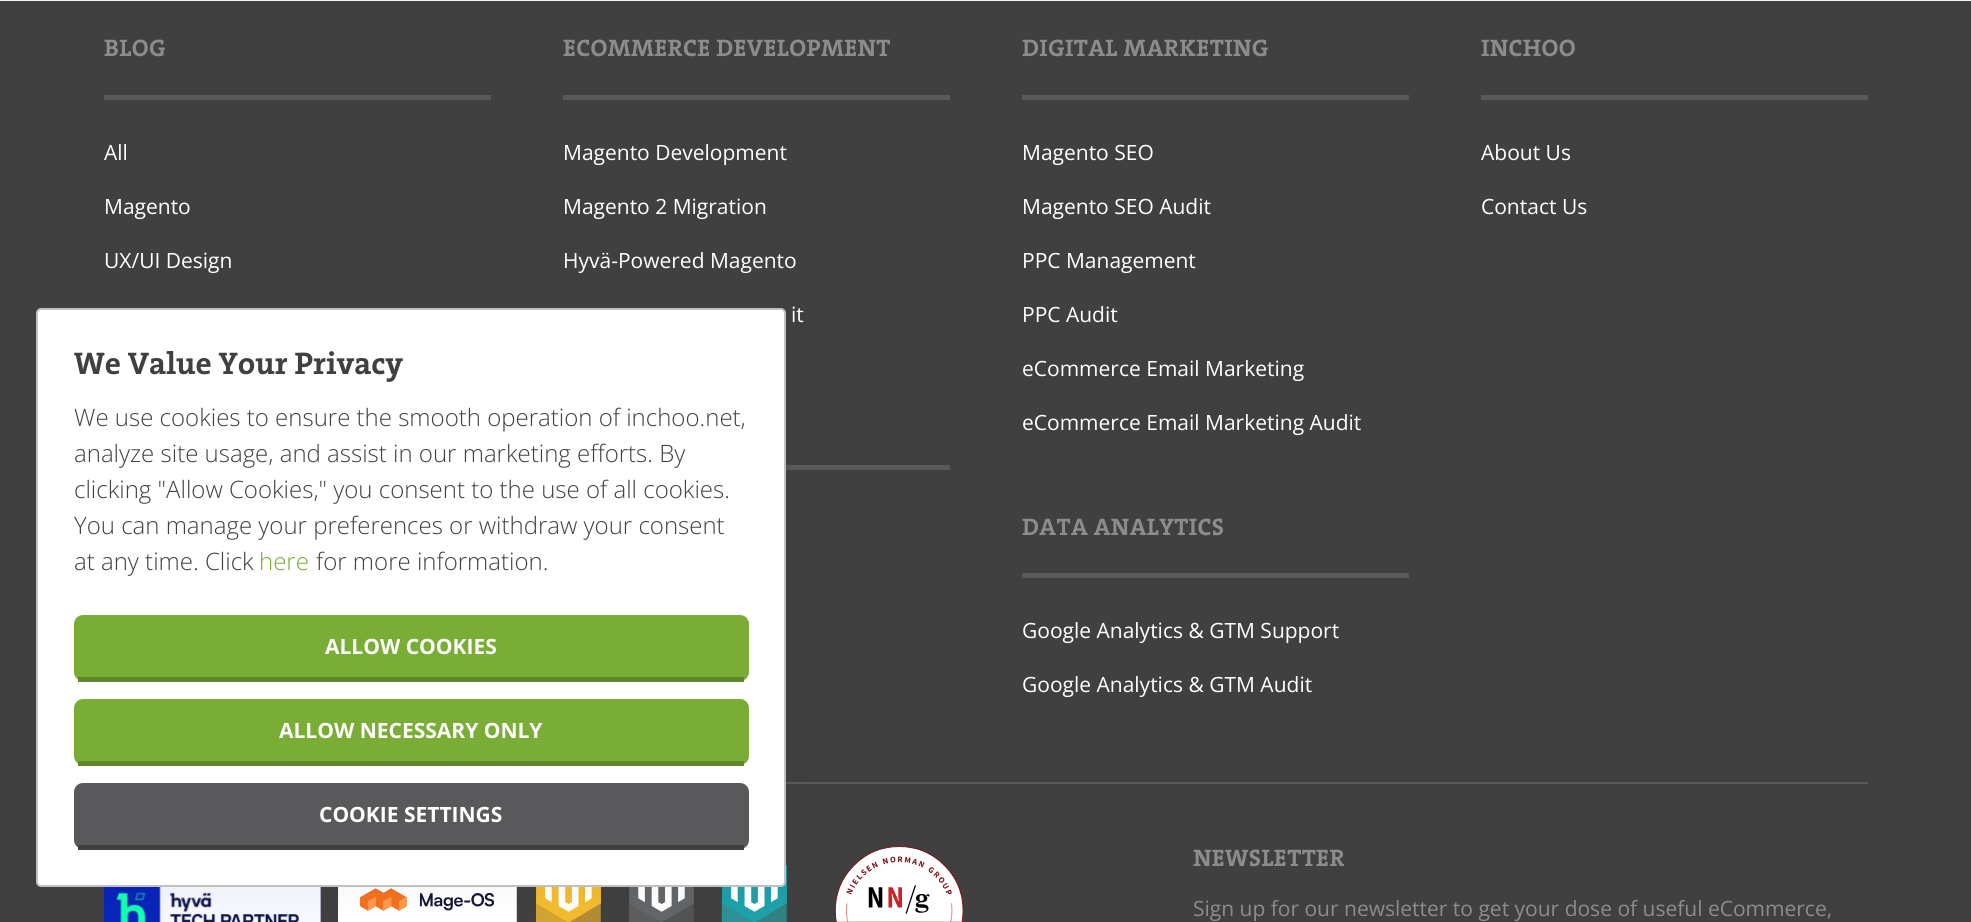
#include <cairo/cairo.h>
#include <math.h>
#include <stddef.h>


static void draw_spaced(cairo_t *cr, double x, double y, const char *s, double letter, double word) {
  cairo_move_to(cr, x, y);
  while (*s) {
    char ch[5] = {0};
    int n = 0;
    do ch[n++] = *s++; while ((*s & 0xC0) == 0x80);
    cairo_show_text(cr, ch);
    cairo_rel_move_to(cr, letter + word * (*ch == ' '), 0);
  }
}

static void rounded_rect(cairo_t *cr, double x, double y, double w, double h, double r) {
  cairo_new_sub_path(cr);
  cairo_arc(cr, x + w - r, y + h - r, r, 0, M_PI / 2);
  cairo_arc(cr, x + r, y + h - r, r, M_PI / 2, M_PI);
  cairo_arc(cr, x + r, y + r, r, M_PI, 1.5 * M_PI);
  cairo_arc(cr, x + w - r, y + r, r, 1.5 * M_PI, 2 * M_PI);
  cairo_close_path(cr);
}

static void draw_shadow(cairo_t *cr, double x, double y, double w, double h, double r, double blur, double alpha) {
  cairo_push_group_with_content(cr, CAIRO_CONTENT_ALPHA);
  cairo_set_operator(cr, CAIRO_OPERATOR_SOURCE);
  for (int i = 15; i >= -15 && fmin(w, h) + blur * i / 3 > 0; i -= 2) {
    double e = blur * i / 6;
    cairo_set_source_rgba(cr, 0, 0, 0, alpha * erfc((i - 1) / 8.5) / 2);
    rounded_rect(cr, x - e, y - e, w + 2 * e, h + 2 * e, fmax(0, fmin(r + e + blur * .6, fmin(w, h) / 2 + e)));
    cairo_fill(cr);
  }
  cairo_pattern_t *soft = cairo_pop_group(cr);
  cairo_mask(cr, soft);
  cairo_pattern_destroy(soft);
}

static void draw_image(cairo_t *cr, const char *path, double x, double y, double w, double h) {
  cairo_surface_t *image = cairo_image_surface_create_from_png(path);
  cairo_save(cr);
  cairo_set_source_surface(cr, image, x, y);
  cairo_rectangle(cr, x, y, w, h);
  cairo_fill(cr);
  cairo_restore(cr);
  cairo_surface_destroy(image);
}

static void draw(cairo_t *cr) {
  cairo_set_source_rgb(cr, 64 / 255.0, 64 / 255.0, 65 / 255.0);
  cairo_paint(cr);
  cairo_set_source_rgb(cr, 243 / 255.0, 243 / 255.0, 243 / 255.0);
  cairo_rectangle(cr, 0, 0, 1971, 1);
  cairo_fill(cr);
  cairo_set_source_rgb(cr, 89 / 255.0, 89 / 255.0, 91 / 255.0);
  cairo_rectangle(cr, 104, 95, 387, 5);
  cairo_fill(cr);
  cairo_rectangle(cr, 563, 95, 387, 5);
  cairo_fill(cr);
  cairo_rectangle(cr, 786, 465, 164, 5);
  cairo_fill(cr);
  cairo_rectangle(cr, 1022, 95, 387, 5);
  cairo_fill(cr);
  cairo_rectangle(cr, 1022, 573, 387, 5);
  cairo_fill(cr);
  cairo_rectangle(cr, 1481, 95, 387, 5);
  cairo_fill(cr);
  cairo_rectangle(cr, 786, 782, 1082, 2);
  cairo_fill(cr);
  draw_image(cr, "images/1.png", 104, 887, 217, 35);
  draw_image(cr, "images/2.png", 338, 887, 179, 35);
  draw_image(cr, "images/3.png", 535, 887, 66, 35);
  draw_image(cr, "images/4.png", 629, 887, 65, 35);
  draw_image(cr, "images/5.png", 721, 864, 66, 58);
  draw_image(cr, "images/6.png", 834, 846, 132, 76);
  cairo_set_source_rgb(cr, 0, 0, 0);
  draw_shadow(cr, 36, 308, 750, 579, 5, 18, 0.06);
  cairo_set_source_rgb(cr, 1, 1, 1);
  rounded_rect(cr, 37, 309, 748, 577, 4);
  cairo_fill_preserve(cr);
  cairo_set_source_rgb(cr, 192 / 255.0, 192 / 255.0, 192 / 255.0);
  cairo_stroke(cr);
  cairo_set_source_rgb(cr, 121 / 255.0, 173 / 255.0, 54 / 255.0);
  rounded_rect(cr, 74, 615, 675, 66, 9);
  cairo_fill(cr);
  cairo_set_source_rgb(cr, 94 / 255.0, 134 / 255.0, 42 / 255.0);
  cairo_rectangle(cr, 78, 677, 666, 5);
  cairo_fill(cr);
  cairo_set_source_rgb(cr, 121 / 255.0, 173 / 255.0, 54 / 255.0);
  rounded_rect(cr, 74, 699, 675, 66, 9);
  cairo_fill(cr);
  cairo_set_source_rgb(cr, 94 / 255.0, 134 / 255.0, 42 / 255.0);
  cairo_rectangle(cr, 78, 761, 666, 5);
  cairo_fill(cr);
  cairo_set_source_rgb(cr, 89 / 255.0, 89 / 255.0, 91 / 255.0);
  rounded_rect(cr, 74, 783, 675, 66, 9);
  cairo_fill(cr);
  cairo_set_source_rgb(cr, 64 / 255.0, 64 / 255.0, 65 / 255.0);
  cairo_rectangle(cr, 78, 845, 666, 5);
  cairo_fill(cr);
  cairo_select_font_face(cr, "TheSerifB", CAIRO_FONT_SLANT_NORMAL, CAIRO_FONT_WEIGHT_BOLD);
  cairo_set_font_size(cr, 24);
  cairo_set_source_rgb(cr, 140 / 255.0, 140 / 255.0, 142 / 255.0);
  draw_spaced(cr, 104, 56, "BLOG", 0.4, 0);
  cairo_select_font_face(cr, "Open Sans", CAIRO_FONT_SLANT_NORMAL, CAIRO_FONT_WEIGHT_NORMAL);
  cairo_set_font_size(cr, 21);
  cairo_set_source_rgb(cr, 1, 1, 1);
  cairo_move_to(cr, 104, 160);
  cairo_show_text(cr, "All");
  cairo_move_to(cr, 104, 214);
  cairo_show_text(cr, "Magento");
  cairo_move_to(cr, 104, 268);
  cairo_show_text(cr, "UX/UI Design");
  cairo_select_font_face(cr, "TheSerifB", CAIRO_FONT_SLANT_NORMAL, CAIRO_FONT_WEIGHT_BOLD);
  cairo_set_font_size(cr, 24);
  cairo_set_source_rgb(cr, 140 / 255.0, 140 / 255.0, 142 / 255.0);
  draw_spaced(cr, 563, 56, "ECOMMERCE DEVELOPMENT", 0.4, 0);
  cairo_select_font_face(cr, "Open Sans", CAIRO_FONT_SLANT_NORMAL, CAIRO_FONT_WEIGHT_NORMAL);
  cairo_set_font_size(cr, 21);
  cairo_set_source_rgb(cr, 1, 1, 1);
  cairo_move_to(cr, 563, 160);
  cairo_show_text(cr, "Magento Development");
  cairo_move_to(cr, 563, 214);
  cairo_show_text(cr, "Magento 2 Migration");
  cairo_move_to(cr, 563, 268);
  cairo_show_text(cr, "Hyvä-Powered Magento");
  cairo_move_to(cr, 791, 322);
  cairo_show_text(cr, "it");
  cairo_select_font_face(cr, "TheSerifB", CAIRO_FONT_SLANT_NORMAL, CAIRO_FONT_WEIGHT_BOLD);
  cairo_set_font_size(cr, 24);
  cairo_set_source_rgb(cr, 140 / 255.0, 140 / 255.0, 142 / 255.0);
  draw_spaced(cr, 1022, 56, "DIGITAL MARKETING", 0.4, 0);
  cairo_select_font_face(cr, "Open Sans", CAIRO_FONT_SLANT_NORMAL, CAIRO_FONT_WEIGHT_NORMAL);
  cairo_set_font_size(cr, 21);
  cairo_set_source_rgb(cr, 1, 1, 1);
  cairo_move_to(cr, 1022, 160);
  cairo_show_text(cr, "Magento SEO");
  cairo_move_to(cr, 1022, 214);
  cairo_show_text(cr, "Magento SEO Audit");
  cairo_move_to(cr, 1022, 268);
  cairo_show_text(cr, "PPC Management");
  cairo_move_to(cr, 1022, 322);
  cairo_show_text(cr, "PPC Audit");
  cairo_move_to(cr, 1022, 376);
  cairo_show_text(cr, "eCommerce Email Marketing");
  cairo_move_to(cr, 1022, 430);
  cairo_show_text(cr, "eCommerce Email Marketing Audit");
  cairo_select_font_face(cr, "TheSerifB", CAIRO_FONT_SLANT_NORMAL, CAIRO_FONT_WEIGHT_BOLD);
  cairo_set_font_size(cr, 24);
  cairo_set_source_rgb(cr, 140 / 255.0, 140 / 255.0, 142 / 255.0);
  draw_spaced(cr, 1022, 535, "DATA ANALYTICS", 0.4, 0);
  cairo_select_font_face(cr, "Open Sans", CAIRO_FONT_SLANT_NORMAL, CAIRO_FONT_WEIGHT_NORMAL);
  cairo_set_font_size(cr, 21);
  cairo_set_source_rgb(cr, 1, 1, 1);
  cairo_move_to(cr, 1022, 638);
  cairo_show_text(cr, "Google Analytics & GTM Support");
  cairo_move_to(cr, 1022, 692);
  cairo_show_text(cr, "Google Analytics & GTM Audit");
  cairo_select_font_face(cr, "TheSerifB", CAIRO_FONT_SLANT_NORMAL, CAIRO_FONT_WEIGHT_BOLD);
  cairo_set_font_size(cr, 24);
  cairo_set_source_rgb(cr, 140 / 255.0, 140 / 255.0, 142 / 255.0);
  draw_spaced(cr, 1481, 56, "INCHOO", 0.4, 0);
  cairo_select_font_face(cr, "Open Sans", CAIRO_FONT_SLANT_NORMAL, CAIRO_FONT_WEIGHT_NORMAL);
  cairo_set_font_size(cr, 21);
  cairo_set_source_rgb(cr, 1, 1, 1);
  cairo_move_to(cr, 1481, 160);
  cairo_show_text(cr, "About Us");
  cairo_move_to(cr, 1481, 214);
  cairo_show_text(cr, "Contact Us");
  cairo_select_font_face(cr, "TheSerifB", CAIRO_FONT_SLANT_NORMAL, CAIRO_FONT_WEIGHT_BOLD);
  cairo_set_font_size(cr, 24);
  cairo_set_source_rgb(cr, 140 / 255.0, 140 / 255.0, 142 / 255.0);
  draw_spaced(cr, 1193, 866, "NEWSLETTER", 0.4, 0);
  cairo_select_font_face(cr, "Open Sans", CAIRO_FONT_SLANT_NORMAL, CAIRO_FONT_WEIGHT_NORMAL);
  cairo_set_font_size(cr, 21);
  cairo_move_to(cr, 1193, 916);
  cairo_show_text(cr, "Sign up for our newsletter to get your dose of useful eCommerce,");
  cairo_select_font_face(cr, "TheSerifB", CAIRO_FONT_SLANT_NORMAL, CAIRO_FONT_WEIGHT_BOLD);
  cairo_set_font_size(cr, 31.5);
  cairo_set_source_rgb(cr, 64 / 255.0, 64 / 255.0, 65 / 255.0);
  cairo_move_to(cr, 74, 374);
  cairo_show_text(cr, "We Value Your Privacy");
  cairo_select_font_face(cr, "Open Sans Light", CAIRO_FONT_SLANT_NORMAL, CAIRO_FONT_WEIGHT_NORMAL);
  cairo_set_font_size(cr, 24);
  cairo_move_to(cr, 74, 426);
  cairo_show_text(cr, "We use cookies to ensure the smooth operation of inchoo.net,");
  cairo_move_to(cr, 74, 462);
  cairo_show_text(cr, "analyze site usage, and assist in our marketing efforts. By");
  cairo_move_to(cr, 74, 498);
  cairo_show_text(cr, "clicking \"Allow Cookies,\" you consent to the use of all cookies.");
  cairo_move_to(cr, 74, 534);
  cairo_show_text(cr, "You can manage your preferences or withdraw your consent");
  cairo_move_to(cr, 74, 570);
  cairo_show_text(cr, "at any time. Click");
  cairo_set_source_rgb(cr, 121 / 255.0, 173 / 255.0, 54 / 255.0);
  cairo_move_to(cr, 259, 570);
  cairo_show_text(cr, "here");
  cairo_set_source_rgb(cr, 64 / 255.0, 64 / 255.0, 65 / 255.0);
  cairo_move_to(cr, 316, 570);
  cairo_show_text(cr, "for more information.");
  cairo_select_font_face(cr, "Open Sans", CAIRO_FONT_SLANT_NORMAL, CAIRO_FONT_WEIGHT_BOLD);
  cairo_set_font_size(cr, 21);
  cairo_set_source_rgb(cr, 1, 1, 1);
  cairo_move_to(cr, 325, 654);
  cairo_show_text(cr, "ALLOW COOKIES");
  cairo_move_to(cr, 279, 738);
  cairo_show_text(cr, "ALLOW NECESSARY ONLY");
  cairo_move_to(cr, 319, 822);
  cairo_show_text(cr, "COOKIE SETTINGS");
}

int main(void) {
  cairo_surface_t *surface = cairo_image_surface_create(CAIRO_FORMAT_RGB24, 1971, 922);
  cairo_t *cr = cairo_create(surface);
  cairo_font_options_t *options = cairo_font_options_create();
  cairo_font_options_set_hint_metrics(options, CAIRO_HINT_METRICS_OFF);
  cairo_font_options_set_hint_style(options, CAIRO_HINT_STYLE_NONE);
  cairo_set_font_options(cr, options);
  cairo_set_miter_limit(cr, 4);
  draw(cr);
  cairo_surface_write_to_png(surface, "out.png");
  cairo_font_options_destroy(options);
  cairo_destroy(cr);
  cairo_surface_destroy(surface);
  return 0;
}
